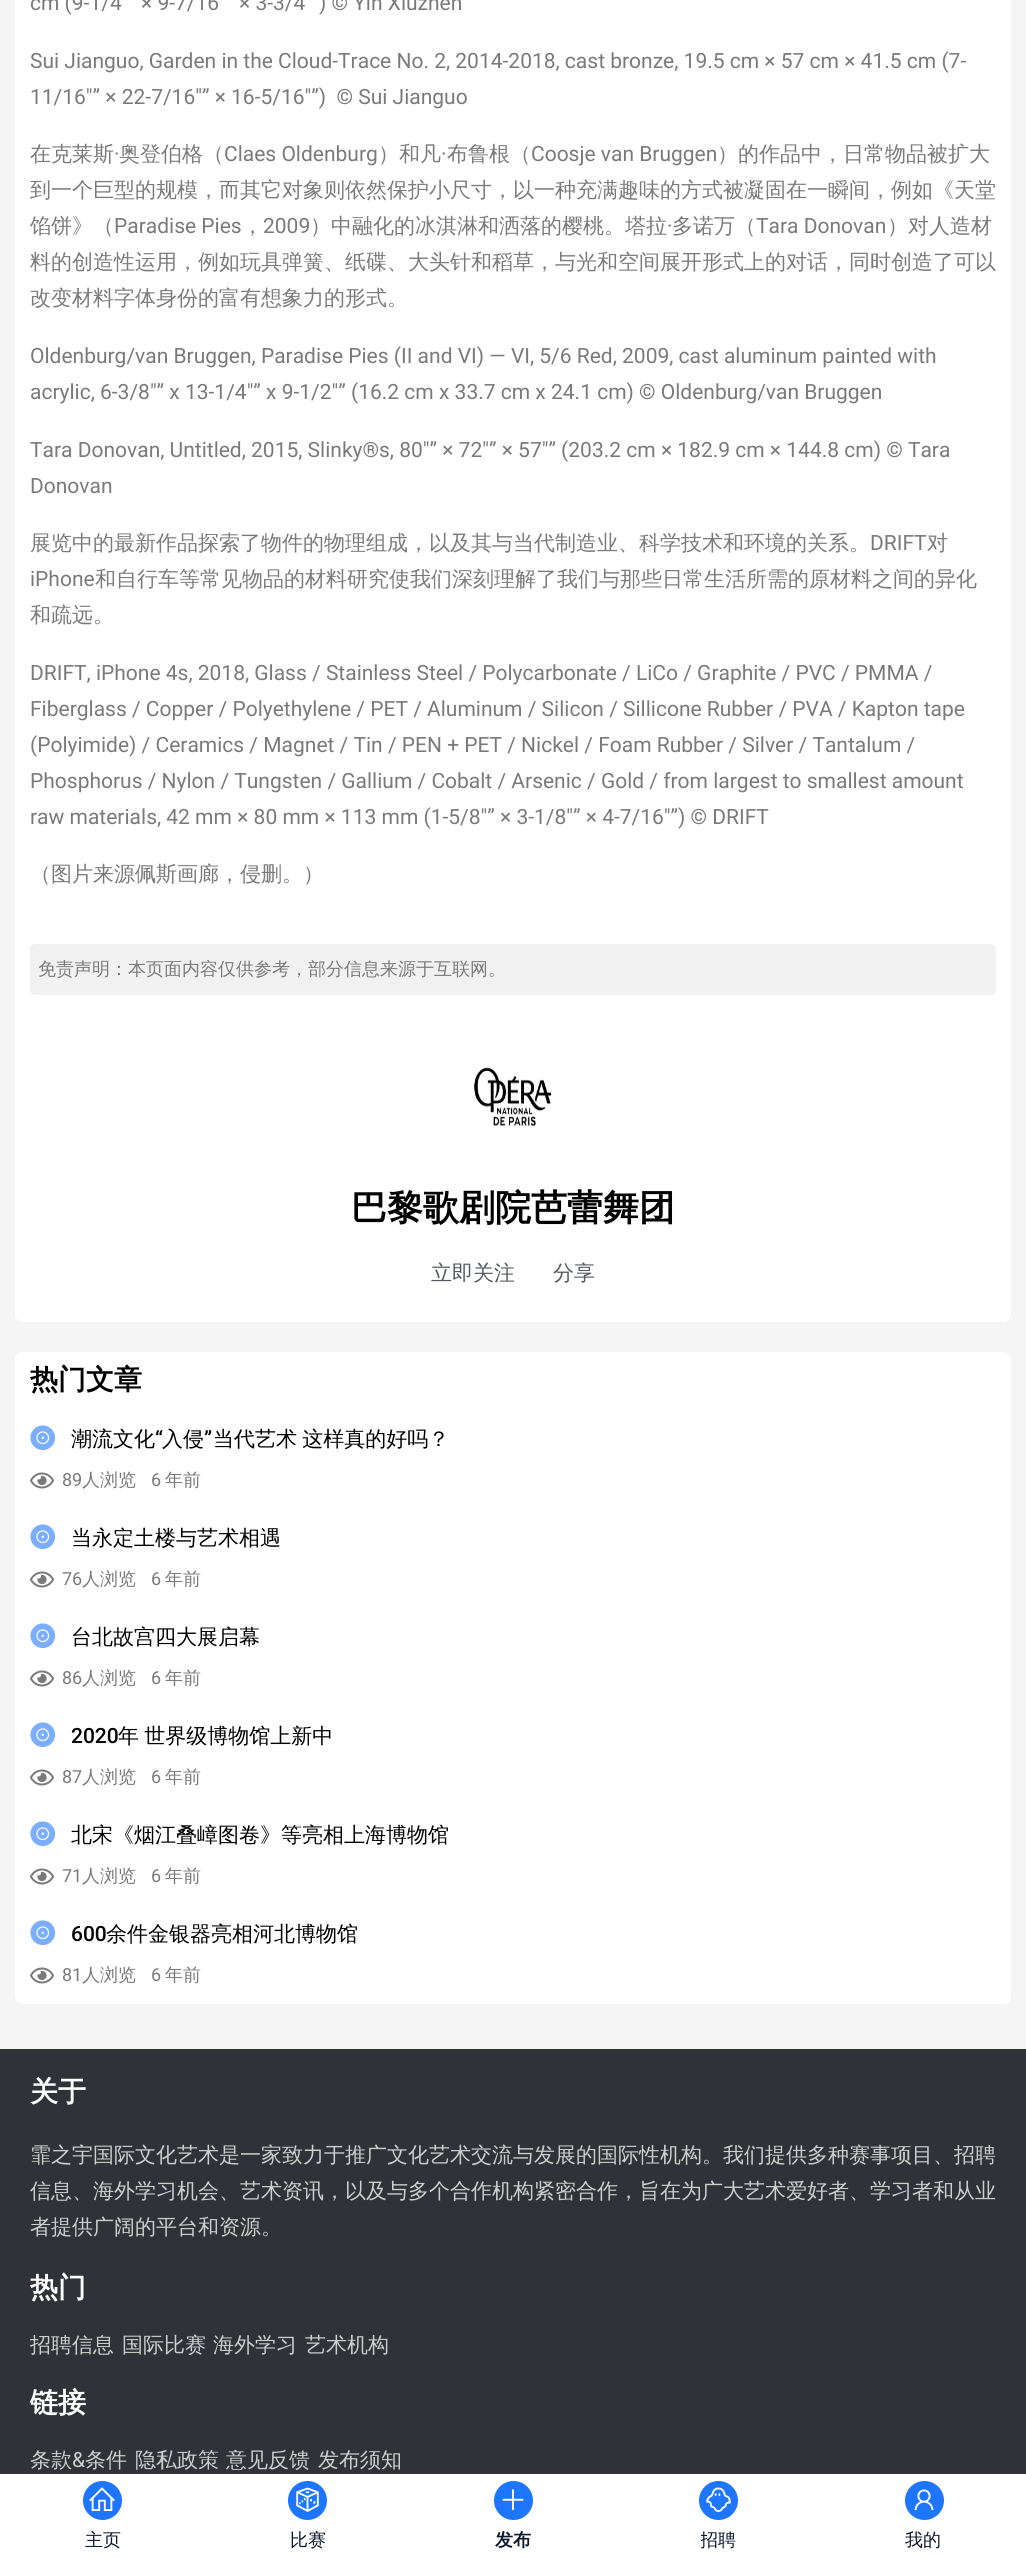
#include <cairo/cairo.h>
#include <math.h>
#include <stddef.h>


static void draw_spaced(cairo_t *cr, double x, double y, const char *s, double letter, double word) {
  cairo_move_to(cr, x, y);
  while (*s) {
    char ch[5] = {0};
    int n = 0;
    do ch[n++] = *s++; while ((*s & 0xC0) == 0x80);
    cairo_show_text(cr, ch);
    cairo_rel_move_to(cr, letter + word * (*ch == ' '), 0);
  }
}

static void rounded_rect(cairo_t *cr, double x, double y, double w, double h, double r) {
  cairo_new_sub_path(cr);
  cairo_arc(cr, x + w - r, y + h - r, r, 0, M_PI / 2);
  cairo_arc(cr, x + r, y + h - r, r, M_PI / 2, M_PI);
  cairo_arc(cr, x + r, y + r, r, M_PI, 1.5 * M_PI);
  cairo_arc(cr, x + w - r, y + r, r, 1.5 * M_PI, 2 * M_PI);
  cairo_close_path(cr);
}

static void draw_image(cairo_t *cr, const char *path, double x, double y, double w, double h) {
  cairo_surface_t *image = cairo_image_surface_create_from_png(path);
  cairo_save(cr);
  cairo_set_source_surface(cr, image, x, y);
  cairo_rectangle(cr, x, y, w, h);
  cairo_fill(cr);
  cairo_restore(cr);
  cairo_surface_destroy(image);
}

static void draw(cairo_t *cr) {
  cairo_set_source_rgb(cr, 245 / 255.0, 245 / 255.0, 245 / 255.0);
  cairo_paint(cr);
  cairo_set_source_rgb(cr, 1, 1, 1);
  rounded_rect(cr, 15, -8, 996, 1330, 8);
  cairo_fill(cr);
  cairo_set_source_rgb(cr, 241 / 255.0, 241 / 255.0, 241 / 255.0);
  rounded_rect(cr, 30, 944, 966, 51, 5);
  cairo_fill(cr);
  draw_image(cr, "images/1.png", 474, 1067, 78, 60);
  cairo_set_source_rgb(cr, 1, 1, 1);
  rounded_rect(cr, 15, 1352, 996, 652, 8);
  cairo_fill(cr);
  draw_image(cr, "images/2.png", 30, 1425, 26, 26);
  draw_image(cr, "images/3.png", 30, 1472, 24, 17);
  draw_image(cr, "images/2.png", 30, 1524, 26, 26);
  draw_image(cr, "images/3.png", 30, 1571, 24, 17);
  draw_image(cr, "images/2.png", 30, 1623, 26, 26);
  draw_image(cr, "images/3.png", 30, 1670, 24, 17);
  draw_image(cr, "images/2.png", 30, 1722, 26, 26);
  draw_image(cr, "images/3.png", 30, 1769, 24, 17);
  draw_image(cr, "images/2.png", 30, 1821, 26, 26);
  draw_image(cr, "images/3.png", 30, 1868, 24, 17);
  draw_image(cr, "images/2.png", 30, 1920, 26, 26);
  draw_image(cr, "images/3.png", 30, 1967, 24, 17);
  cairo_set_source_rgb(cr, 48 / 255.0, 50 / 255.0, 55 / 255.0);
  cairo_rectangle(cr, 0, 2049, 1026, 425);
  cairo_fill(cr);
  cairo_set_source_rgb(cr, 1, 1, 1);
  cairo_rectangle(cr, 0, 2474, 1026, 85);
  cairo_fill(cr);
  cairo_set_source_rgb(cr, 30 / 255.0, 117 / 255.0, 1);
  cairo_arc(cr, 102.5, 2500.5, 19.5, 0, 2 * M_PI);
  cairo_fill(cr);
  draw_image(cr, "images/4.png", 89, 2487, 26, 24);
  cairo_arc(cr, 307.5, 2500.5, 19.5, 0, 2 * M_PI);
  cairo_fill(cr);
  draw_image(cr, "images/5.png", 296, 2487, 23, 25);
  cairo_arc(cr, 513.5, 2500.5, 19.5, 0, 2 * M_PI);
  cairo_fill(cr);
  draw_image(cr, "images/6.png", 502, 2489, 22, 22);
  cairo_arc(cr, 718.5, 2500.5, 19.5, 0, 2 * M_PI);
  cairo_fill(cr);
  draw_image(cr, "images/7.png", 706, 2487, 25, 25);
  cairo_arc(cr, 924.5, 2500.5, 19.5, 0, 2 * M_PI);
  cairo_fill(cr);
  draw_image(cr, "images/8.png", 914, 2489, 20, 22);
  cairo_select_font_face(cr, "Roboto", CAIRO_FONT_SLANT_NORMAL, CAIRO_FONT_WEIGHT_NORMAL);
  cairo_set_font_size(cr, 21);
  cairo_set_source_rgb(cr, 122 / 255.0, 122 / 255.0, 122 / 255.0);
  cairo_move_to(cr, 30, 10);
  cairo_show_text(cr, "cm (9-1/4");
  cairo_move_to(cr, 141, 10);
  cairo_show_text(cr, "× 9-7/16");
  cairo_move_to(cr, 239, 10);
  cairo_show_text(cr, "× 3-3/4");
  cairo_move_to(cr, 319, 10);
  cairo_show_text(cr, ") © Yin Xiuzhen");
  cairo_move_to(cr, 30, 68);
  cairo_show_text(cr, "Sui Jianguo, Garden in the Cloud-Trace No. 2, 2014-2018, cast bronze, 19.5 cm × 57 cm × 41.5 cm (7-");
  cairo_move_to(cr, 30, 104);
  cairo_show_text(cr, "11/16″” × 22-7/16″” × 16-5/16″”)  © Sui Jianguo");
  cairo_select_font_face(cr, "WenQuanYi Zen Hei Medium", CAIRO_FONT_SLANT_NORMAL, CAIRO_FONT_WEIGHT_NORMAL);
  cairo_move_to(cr, 30, 161);
  cairo_show_text(cr, "在克莱斯");
  cairo_select_font_face(cr, "Roboto", CAIRO_FONT_SLANT_NORMAL, CAIRO_FONT_WEIGHT_NORMAL);
  cairo_move_to(cr, 114, 161);
  cairo_show_text(cr, "·");
  cairo_select_font_face(cr, "WenQuanYi Zen Hei Medium", CAIRO_FONT_SLANT_NORMAL, CAIRO_FONT_WEIGHT_NORMAL);
  cairo_move_to(cr, 119, 161);
  cairo_show_text(cr, "奥登伯格（");
  cairo_select_font_face(cr, "Roboto", CAIRO_FONT_SLANT_NORMAL, CAIRO_FONT_WEIGHT_NORMAL);
  cairo_move_to(cr, 224, 161);
  cairo_show_text(cr, "Claes Oldenburg");
  cairo_select_font_face(cr, "WenQuanYi Zen Hei Medium", CAIRO_FONT_SLANT_NORMAL, CAIRO_FONT_WEIGHT_NORMAL);
  cairo_move_to(cr, 378, 161);
  cairo_show_text(cr, "）和凡");
  cairo_select_font_face(cr, "Roboto", CAIRO_FONT_SLANT_NORMAL, CAIRO_FONT_WEIGHT_NORMAL);
  cairo_move_to(cr, 441, 161);
  cairo_show_text(cr, "·");
  cairo_select_font_face(cr, "WenQuanYi Zen Hei Medium", CAIRO_FONT_SLANT_NORMAL, CAIRO_FONT_WEIGHT_NORMAL);
  cairo_move_to(cr, 447, 161);
  cairo_show_text(cr, "布鲁根（");
  cairo_select_font_face(cr, "Roboto", CAIRO_FONT_SLANT_NORMAL, CAIRO_FONT_WEIGHT_NORMAL);
  cairo_move_to(cr, 531, 161);
  cairo_show_text(cr, "Coosje van Bruggen");
  cairo_select_font_face(cr, "WenQuanYi Zen Hei Medium", CAIRO_FONT_SLANT_NORMAL, CAIRO_FONT_WEIGHT_NORMAL);
  cairo_move_to(cr, 717, 161);
  cairo_show_text(cr, "）的作品中，日常物品被扩大");
  cairo_move_to(cr, 30, 197);
  cairo_show_text(cr, "到一个巨型的规模，而其它对象则依然保护小尺寸，以一种充满趣味的方式被凝固在一瞬间，例如《天堂");
  cairo_move_to(cr, 30, 233);
  cairo_show_text(cr, "馅饼》（");
  cairo_select_font_face(cr, "Roboto", CAIRO_FONT_SLANT_NORMAL, CAIRO_FONT_WEIGHT_NORMAL);
  cairo_move_to(cr, 114, 233);
  cairo_show_text(cr, "Paradise Pies");
  cairo_move_to(cr, 263, 233);
  cairo_show_text(cr, "2009");
  cairo_select_font_face(cr, "WenQuanYi Zen Hei Medium", CAIRO_FONT_SLANT_NORMAL, CAIRO_FONT_WEIGHT_NORMAL);
  cairo_move_to(cr, 310, 233);
  cairo_show_text(cr, "）中融化的冰淇淋和洒落的樱桃。塔拉");
  cairo_select_font_face(cr, "Roboto", CAIRO_FONT_SLANT_NORMAL, CAIRO_FONT_WEIGHT_NORMAL);
  cairo_move_to(cr, 667, 233);
  cairo_show_text(cr, "·");
  cairo_select_font_face(cr, "WenQuanYi Zen Hei Medium", CAIRO_FONT_SLANT_NORMAL, CAIRO_FONT_WEIGHT_NORMAL);
  cairo_move_to(cr, 672, 233);
  cairo_show_text(cr, "多诺万（");
  cairo_select_font_face(cr, "Roboto", CAIRO_FONT_SLANT_NORMAL, CAIRO_FONT_WEIGHT_NORMAL);
  cairo_move_to(cr, 756, 233);
  cairo_show_text(cr, "Tara Donovan");
  cairo_select_font_face(cr, "WenQuanYi Zen Hei Medium", CAIRO_FONT_SLANT_NORMAL, CAIRO_FONT_WEIGHT_NORMAL);
  cairo_move_to(cr, 887, 233);
  cairo_show_text(cr, "）对人造材");
  cairo_move_to(cr, 242, 233);
  cairo_show_text(cr, "，");
  cairo_move_to(cr, 30, 269);
  cairo_show_text(cr, "料的创造性运用，例如玩具弹簧、纸碟、大头针和稻草，与光和空间展开形式上的对话，同时创造了可以");
  cairo_move_to(cr, 30, 305);
  cairo_show_text(cr, "改变材料字体身份的富有想象力的形式。");
  cairo_select_font_face(cr, "Roboto", CAIRO_FONT_SLANT_NORMAL, CAIRO_FONT_WEIGHT_NORMAL);
  cairo_move_to(cr, 30, 363);
  cairo_show_text(cr, "Oldenburg/van Bruggen, Paradise Pies (II and VI) — VI, 5/6 Red, 2009, cast aluminum painted with");
  cairo_move_to(cr, 30, 399);
  cairo_show_text(cr, "acrylic, 6-3/8″” x 13-1/4″” x 9-1/2″” (16.2 cm x 33.7 cm x 24.1 cm) © Oldenburg/van Bruggen");
  cairo_move_to(cr, 30, 457);
  cairo_show_text(cr, "Tara Donovan, Untitled, 2015, Slinky®s, 80″” × 72″” × 57″” (203.2 cm × 182.9 cm × 144.8 cm) © Tara");
  cairo_move_to(cr, 30, 493);
  cairo_show_text(cr, "Donovan");
  cairo_select_font_face(cr, "WenQuanYi Zen Hei Medium", CAIRO_FONT_SLANT_NORMAL, CAIRO_FONT_WEIGHT_NORMAL);
  cairo_move_to(cr, 30, 550);
  cairo_show_text(cr, "展览中的最新作品探索了物件的物理组成，以及其与当代制造业、科学技术和环境的关系。");
  cairo_select_font_face(cr, "Roboto", CAIRO_FONT_SLANT_NORMAL, CAIRO_FONT_WEIGHT_NORMAL);
  cairo_move_to(cr, 870, 550);
  cairo_show_text(cr, "DRIFT");
  cairo_select_font_face(cr, "WenQuanYi Zen Hei Medium", CAIRO_FONT_SLANT_NORMAL, CAIRO_FONT_WEIGHT_NORMAL);
  cairo_move_to(cr, 927, 550);
  cairo_show_text(cr, "对");
  cairo_select_font_face(cr, "Roboto", CAIRO_FONT_SLANT_NORMAL, CAIRO_FONT_WEIGHT_NORMAL);
  cairo_move_to(cr, 30, 586);
  cairo_show_text(cr, "iPhone");
  cairo_select_font_face(cr, "WenQuanYi Zen Hei Medium", CAIRO_FONT_SLANT_NORMAL, CAIRO_FONT_WEIGHT_NORMAL);
  cairo_move_to(cr, 95, 586);
  cairo_show_text(cr, "和自行车等常见物品的材料研究使我们深刻理解了我们与那些日常生活所需的原材料之间的异化");
  cairo_move_to(cr, 30, 622);
  cairo_show_text(cr, "和疏远。");
  cairo_select_font_face(cr, "Roboto", CAIRO_FONT_SLANT_NORMAL, CAIRO_FONT_WEIGHT_NORMAL);
  cairo_move_to(cr, 30, 680);
  cairo_show_text(cr, "DRIFT, iPhone 4s, 2018, Glass / Stainless Steel / Polycarbonate / LiCo / Graphite / PVC / PMMA /");
  cairo_move_to(cr, 30, 716);
  cairo_show_text(cr, "Fiberglass / Copper / Polyethylene / PET / Aluminum / Silicon / Sillicone Rubber / PVA / Kapton tape");
  cairo_move_to(cr, 30, 752);
  cairo_show_text(cr, "(Polyimide) / Ceramics / Magnet / Tin / PEN + PET / Nickel / Foam Rubber / Silver / Tantalum /");
  cairo_move_to(cr, 30, 788);
  cairo_show_text(cr, "Phosphorus / Nylon / Tungsten / Gallium / Cobalt / Arsenic / Gold / from largest to smallest amount");
  cairo_move_to(cr, 30, 824);
  cairo_show_text(cr, "raw materials, 42 mm × 80 mm × 113 mm (1-5/8″” × 3-1/8″” × 4-7/16″”) © DRIFT");
  cairo_select_font_face(cr, "WenQuanYi Zen Hei Medium", CAIRO_FONT_SLANT_NORMAL, CAIRO_FONT_WEIGHT_NORMAL);
  cairo_move_to(cr, 30, 881);
  cairo_show_text(cr, "（图片来源佩斯画廊，侵删。）");
  cairo_set_font_size(cr, 18);
  cairo_move_to(cr, 38, 975);
  cairo_show_text(cr, "免责声明：本页面内容仅供参考，部分信息来源于互联网。");
  cairo_select_font_face(cr, "WenQuanYi Zen Hei", CAIRO_FONT_SLANT_NORMAL, CAIRO_FONT_WEIGHT_BOLD);
  cairo_set_font_size(cr, 36);
  cairo_set_source_rgb(cr, 0, 0, 0);
  cairo_move_to(cr, 351, 1220);
  cairo_show_text(cr, "巴黎歌剧院芭蕾舞团");
  cairo_select_font_face(cr, "WenQuanYi Zen Hei Medium", CAIRO_FONT_SLANT_NORMAL, CAIRO_FONT_WEIGHT_NORMAL);
  cairo_set_font_size(cr, 21);
  cairo_set_source_rgb(cr, 84 / 255.0, 89 / 255.0, 95 / 255.0);
  cairo_move_to(cr, 431, 1280);
  cairo_show_text(cr, "立即关注");
  cairo_move_to(cr, 553, 1280);
  cairo_show_text(cr, "分享");
  cairo_select_font_face(cr, "WenQuanYi Zen Hei", CAIRO_FONT_SLANT_NORMAL, CAIRO_FONT_WEIGHT_BOLD);
  cairo_set_font_size(cr, 28);
  cairo_set_source_rgb(cr, 0, 0, 0);
  cairo_move_to(cr, 30, 1389);
  cairo_show_text(cr, "热门文章");
  cairo_select_font_face(cr, "WenQuanYi Zen Hei Medium", CAIRO_FONT_SLANT_NORMAL, CAIRO_FONT_WEIGHT_NORMAL);
  cairo_set_font_size(cr, 21);
  cairo_move_to(cr, 71, 1446);
  cairo_show_text(cr, "潮流文化");
  cairo_select_font_face(cr, "Roboto Medium", CAIRO_FONT_SLANT_NORMAL, CAIRO_FONT_WEIGHT_NORMAL);
  cairo_move_to(cr, 155, 1446);
  cairo_show_text(cr, "“");
  cairo_select_font_face(cr, "WenQuanYi Zen Hei Medium", CAIRO_FONT_SLANT_NORMAL, CAIRO_FONT_WEIGHT_NORMAL);
  cairo_move_to(cr, 162, 1446);
  cairo_show_text(cr, "入侵");
  cairo_select_font_face(cr, "Roboto Medium", CAIRO_FONT_SLANT_NORMAL, CAIRO_FONT_WEIGHT_NORMAL);
  cairo_move_to(cr, 204, 1446);
  cairo_show_text(cr, "”");
  cairo_select_font_face(cr, "WenQuanYi Zen Hei Medium", CAIRO_FONT_SLANT_NORMAL, CAIRO_FONT_WEIGHT_NORMAL);
  draw_spaced(cr, 213, 1446, "当代艺术 这样真的好吗？", 0, -1);
  cairo_select_font_face(cr, "Roboto", CAIRO_FONT_SLANT_NORMAL, CAIRO_FONT_WEIGHT_NORMAL);
  cairo_set_font_size(cr, 18);
  cairo_set_source_rgb(cr, 122 / 255.0, 122 / 255.0, 122 / 255.0);
  cairo_move_to(cr, 62, 1486);
  cairo_show_text(cr, "89");
  cairo_select_font_face(cr, "WenQuanYi Zen Hei Medium", CAIRO_FONT_SLANT_NORMAL, CAIRO_FONT_WEIGHT_NORMAL);
  cairo_move_to(cr, 82, 1486);
  cairo_show_text(cr, "人浏览");
  cairo_select_font_face(cr, "Roboto", CAIRO_FONT_SLANT_NORMAL, CAIRO_FONT_WEIGHT_NORMAL);
  cairo_move_to(cr, 151, 1486);
  cairo_show_text(cr, "6");
  cairo_select_font_face(cr, "WenQuanYi Zen Hei Medium", CAIRO_FONT_SLANT_NORMAL, CAIRO_FONT_WEIGHT_NORMAL);
  cairo_move_to(cr, 165, 1486);
  cairo_show_text(cr, "年前");
  cairo_set_font_size(cr, 21);
  cairo_set_source_rgb(cr, 0, 0, 0);
  cairo_move_to(cr, 71, 1545);
  cairo_show_text(cr, "当永定土楼与艺术相遇");
  cairo_select_font_face(cr, "Roboto", CAIRO_FONT_SLANT_NORMAL, CAIRO_FONT_WEIGHT_NORMAL);
  cairo_set_font_size(cr, 18);
  cairo_set_source_rgb(cr, 122 / 255.0, 122 / 255.0, 122 / 255.0);
  cairo_move_to(cr, 62, 1585);
  cairo_show_text(cr, "76");
  cairo_select_font_face(cr, "WenQuanYi Zen Hei Medium", CAIRO_FONT_SLANT_NORMAL, CAIRO_FONT_WEIGHT_NORMAL);
  cairo_move_to(cr, 82, 1585);
  cairo_show_text(cr, "人浏览");
  cairo_select_font_face(cr, "Roboto", CAIRO_FONT_SLANT_NORMAL, CAIRO_FONT_WEIGHT_NORMAL);
  cairo_move_to(cr, 151, 1585);
  cairo_show_text(cr, "6");
  cairo_select_font_face(cr, "WenQuanYi Zen Hei Medium", CAIRO_FONT_SLANT_NORMAL, CAIRO_FONT_WEIGHT_NORMAL);
  cairo_move_to(cr, 165, 1585);
  cairo_show_text(cr, "年前");
  cairo_set_font_size(cr, 21);
  cairo_set_source_rgb(cr, 0, 0, 0);
  cairo_move_to(cr, 71, 1644);
  cairo_show_text(cr, "台北故宫四大展启幕");
  cairo_select_font_face(cr, "Roboto", CAIRO_FONT_SLANT_NORMAL, CAIRO_FONT_WEIGHT_NORMAL);
  cairo_set_font_size(cr, 18);
  cairo_set_source_rgb(cr, 122 / 255.0, 122 / 255.0, 122 / 255.0);
  cairo_move_to(cr, 62, 1684);
  cairo_show_text(cr, "86");
  cairo_select_font_face(cr, "WenQuanYi Zen Hei Medium", CAIRO_FONT_SLANT_NORMAL, CAIRO_FONT_WEIGHT_NORMAL);
  cairo_move_to(cr, 82, 1684);
  cairo_show_text(cr, "人浏览");
  cairo_select_font_face(cr, "Roboto", CAIRO_FONT_SLANT_NORMAL, CAIRO_FONT_WEIGHT_NORMAL);
  cairo_move_to(cr, 151, 1684);
  cairo_show_text(cr, "6");
  cairo_select_font_face(cr, "WenQuanYi Zen Hei Medium", CAIRO_FONT_SLANT_NORMAL, CAIRO_FONT_WEIGHT_NORMAL);
  cairo_move_to(cr, 165, 1684);
  cairo_show_text(cr, "年前");
  cairo_select_font_face(cr, "Roboto Medium", CAIRO_FONT_SLANT_NORMAL, CAIRO_FONT_WEIGHT_NORMAL);
  cairo_set_font_size(cr, 21);
  cairo_set_source_rgb(cr, 0, 0, 0);
  cairo_move_to(cr, 71, 1743);
  cairo_show_text(cr, "2020");
  cairo_select_font_face(cr, "WenQuanYi Zen Hei Medium", CAIRO_FONT_SLANT_NORMAL, CAIRO_FONT_WEIGHT_NORMAL);
  draw_spaced(cr, 118, 1743, "年 世界级博物馆上新中", 0, -1);
  cairo_select_font_face(cr, "Roboto", CAIRO_FONT_SLANT_NORMAL, CAIRO_FONT_WEIGHT_NORMAL);
  cairo_set_font_size(cr, 18);
  cairo_set_source_rgb(cr, 122 / 255.0, 122 / 255.0, 122 / 255.0);
  cairo_move_to(cr, 62, 1783);
  cairo_show_text(cr, "87");
  cairo_select_font_face(cr, "WenQuanYi Zen Hei Medium", CAIRO_FONT_SLANT_NORMAL, CAIRO_FONT_WEIGHT_NORMAL);
  cairo_move_to(cr, 82, 1783);
  cairo_show_text(cr, "人浏览");
  cairo_select_font_face(cr, "Roboto", CAIRO_FONT_SLANT_NORMAL, CAIRO_FONT_WEIGHT_NORMAL);
  cairo_move_to(cr, 151, 1783);
  cairo_show_text(cr, "6");
  cairo_select_font_face(cr, "WenQuanYi Zen Hei Medium", CAIRO_FONT_SLANT_NORMAL, CAIRO_FONT_WEIGHT_NORMAL);
  cairo_move_to(cr, 165, 1783);
  cairo_show_text(cr, "年前");
  cairo_set_font_size(cr, 21);
  cairo_set_source_rgb(cr, 0, 0, 0);
  cairo_move_to(cr, 71, 1842);
  cairo_show_text(cr, "北宋《烟江叠嶂图卷》等亮相上海博物馆");
  cairo_select_font_face(cr, "Roboto", CAIRO_FONT_SLANT_NORMAL, CAIRO_FONT_WEIGHT_NORMAL);
  cairo_set_font_size(cr, 18);
  cairo_set_source_rgb(cr, 122 / 255.0, 122 / 255.0, 122 / 255.0);
  cairo_move_to(cr, 62, 1882);
  cairo_show_text(cr, "71");
  cairo_select_font_face(cr, "WenQuanYi Zen Hei Medium", CAIRO_FONT_SLANT_NORMAL, CAIRO_FONT_WEIGHT_NORMAL);
  cairo_move_to(cr, 82, 1882);
  cairo_show_text(cr, "人浏览");
  cairo_select_font_face(cr, "Roboto", CAIRO_FONT_SLANT_NORMAL, CAIRO_FONT_WEIGHT_NORMAL);
  cairo_move_to(cr, 151, 1882);
  cairo_show_text(cr, "6");
  cairo_select_font_face(cr, "WenQuanYi Zen Hei Medium", CAIRO_FONT_SLANT_NORMAL, CAIRO_FONT_WEIGHT_NORMAL);
  cairo_move_to(cr, 165, 1882);
  cairo_show_text(cr, "年前");
  cairo_select_font_face(cr, "Roboto Medium", CAIRO_FONT_SLANT_NORMAL, CAIRO_FONT_WEIGHT_NORMAL);
  cairo_set_font_size(cr, 21);
  cairo_set_source_rgb(cr, 0, 0, 0);
  cairo_move_to(cr, 71, 1941);
  cairo_show_text(cr, "600");
  cairo_select_font_face(cr, "WenQuanYi Zen Hei Medium", CAIRO_FONT_SLANT_NORMAL, CAIRO_FONT_WEIGHT_NORMAL);
  cairo_move_to(cr, 106, 1941);
  cairo_show_text(cr, "余件金银器亮相河北博物馆");
  cairo_select_font_face(cr, "Roboto", CAIRO_FONT_SLANT_NORMAL, CAIRO_FONT_WEIGHT_NORMAL);
  cairo_set_font_size(cr, 18);
  cairo_set_source_rgb(cr, 122 / 255.0, 122 / 255.0, 122 / 255.0);
  cairo_move_to(cr, 62, 1981);
  cairo_show_text(cr, "81");
  cairo_select_font_face(cr, "WenQuanYi Zen Hei Medium", CAIRO_FONT_SLANT_NORMAL, CAIRO_FONT_WEIGHT_NORMAL);
  cairo_move_to(cr, 82, 1981);
  cairo_show_text(cr, "人浏览");
  cairo_select_font_face(cr, "Roboto", CAIRO_FONT_SLANT_NORMAL, CAIRO_FONT_WEIGHT_NORMAL);
  cairo_move_to(cr, 151, 1981);
  cairo_show_text(cr, "6");
  cairo_select_font_face(cr, "WenQuanYi Zen Hei Medium", CAIRO_FONT_SLANT_NORMAL, CAIRO_FONT_WEIGHT_NORMAL);
  cairo_move_to(cr, 165, 1981);
  cairo_show_text(cr, "年前");
  cairo_select_font_face(cr, "WenQuanYi Zen Hei", CAIRO_FONT_SLANT_NORMAL, CAIRO_FONT_WEIGHT_BOLD);
  cairo_set_font_size(cr, 28);
  cairo_set_source_rgb(cr, 1, 1, 1);
  cairo_move_to(cr, 30, 2101);
  cairo_show_text(cr, "关于");
  cairo_select_font_face(cr, "WenQuanYi Zen Hei Medium", CAIRO_FONT_SLANT_NORMAL, CAIRO_FONT_WEIGHT_NORMAL);
  cairo_set_font_size(cr, 21);
  cairo_set_source_rgb(cr, 206 / 255.0, 206 / 255.0, 206 / 255.0);
  cairo_move_to(cr, 30, 2162);
  cairo_show_text(cr, "霏之宇国际文化艺术是一家致力于推广文化艺术交流与发展的国际性机构。我们提供多种赛事项目、招聘");
  cairo_move_to(cr, 30, 2198);
  cairo_show_text(cr, "信息、海外学习机会、艺术资讯，以及与多个合作机构紧密合作，旨在为广大艺术爱好者、学习者和从业");
  cairo_move_to(cr, 30, 2234);
  cairo_show_text(cr, "者提供广阔的平台和资源。");
  cairo_select_font_face(cr, "WenQuanYi Zen Hei", CAIRO_FONT_SLANT_NORMAL, CAIRO_FONT_WEIGHT_BOLD);
  cairo_set_font_size(cr, 28);
  cairo_set_source_rgb(cr, 1, 1, 1);
  cairo_move_to(cr, 30, 2297);
  cairo_show_text(cr, "热门");
  cairo_select_font_face(cr, "WenQuanYi Zen Hei Medium", CAIRO_FONT_SLANT_NORMAL, CAIRO_FONT_WEIGHT_NORMAL);
  cairo_set_font_size(cr, 21);
  cairo_set_source_rgb(cr, 206 / 255.0, 206 / 255.0, 206 / 255.0);
  cairo_move_to(cr, 30, 2352);
  cairo_show_text(cr, "招聘信息");
  cairo_move_to(cr, 122, 2352);
  cairo_show_text(cr, "国际比赛");
  cairo_move_to(cr, 213, 2352);
  cairo_show_text(cr, "海外学习");
  cairo_move_to(cr, 305, 2352);
  cairo_show_text(cr, "艺术机构");
  cairo_select_font_face(cr, "WenQuanYi Zen Hei", CAIRO_FONT_SLANT_NORMAL, CAIRO_FONT_WEIGHT_BOLD);
  cairo_set_font_size(cr, 28);
  cairo_set_source_rgb(cr, 1, 1, 1);
  cairo_move_to(cr, 30, 2412);
  cairo_show_text(cr, "链接");
  cairo_select_font_face(cr, "WenQuanYi Zen Hei Medium", CAIRO_FONT_SLANT_NORMAL, CAIRO_FONT_WEIGHT_NORMAL);
  cairo_set_font_size(cr, 21);
  cairo_set_source_rgb(cr, 206 / 255.0, 206 / 255.0, 206 / 255.0);
  cairo_move_to(cr, 30, 2467);
  cairo_show_text(cr, "条款");
  cairo_select_font_face(cr, "Roboto", CAIRO_FONT_SLANT_NORMAL, CAIRO_FONT_WEIGHT_NORMAL);
  cairo_move_to(cr, 72, 2467);
  cairo_show_text(cr, "&");
  cairo_select_font_face(cr, "WenQuanYi Zen Hei Medium", CAIRO_FONT_SLANT_NORMAL, CAIRO_FONT_WEIGHT_NORMAL);
  cairo_move_to(cr, 85, 2467);
  cairo_show_text(cr, "条件");
  cairo_move_to(cr, 135, 2467);
  cairo_show_text(cr, "隐私政策");
  cairo_move_to(cr, 226, 2467);
  cairo_show_text(cr, "意见反馈");
  cairo_move_to(cr, 318, 2467);
  cairo_show_text(cr, "发布须知");
  cairo_set_font_size(cr, 18);
  cairo_set_source_rgb(cr, 12 / 255.0, 22 / 255.0, 44 / 255.0);
  cairo_move_to(cr, 85, 2546);
  cairo_show_text(cr, "主页");
  cairo_move_to(cr, 290, 2546);
  cairo_show_text(cr, "比赛");
  cairo_select_font_face(cr, "WenQuanYi Zen Hei", CAIRO_FONT_SLANT_NORMAL, CAIRO_FONT_WEIGHT_BOLD);
  cairo_move_to(cr, 495, 2546);
  cairo_show_text(cr, "发布");
  cairo_save(cr);
  cairo_rectangle(cr, 701, 2528, 36, 25);
  cairo_clip(cr);
  cairo_select_font_face(cr, "WenQuanYi Zen Hei Medium", CAIRO_FONT_SLANT_NORMAL, CAIRO_FONT_WEIGHT_NORMAL);
  cairo_move_to(cr, 700, 2546);
  cairo_show_text(cr, "招聘");
  cairo_restore(cr);
  cairo_select_font_face(cr, "WenQuanYi Zen Hei Medium", CAIRO_FONT_SLANT_NORMAL, CAIRO_FONT_WEIGHT_NORMAL);
  cairo_move_to(cr, 905, 2546);
  cairo_show_text(cr, "我的");
}

int main(void) {
  cairo_surface_t *surface = cairo_image_surface_create(CAIRO_FORMAT_RGB24, 1026, 2559);
  cairo_t *cr = cairo_create(surface);
  cairo_font_options_t *options = cairo_font_options_create();
  cairo_font_options_set_hint_metrics(options, CAIRO_HINT_METRICS_OFF);
  cairo_font_options_set_hint_style(options, CAIRO_HINT_STYLE_NONE);
  cairo_set_font_options(cr, options);
  cairo_set_miter_limit(cr, 4);
  draw(cr);
  cairo_surface_write_to_png(surface, "out.png");
  cairo_font_options_destroy(options);
  cairo_destroy(cr);
  cairo_surface_destroy(surface);
  return 0;
}
